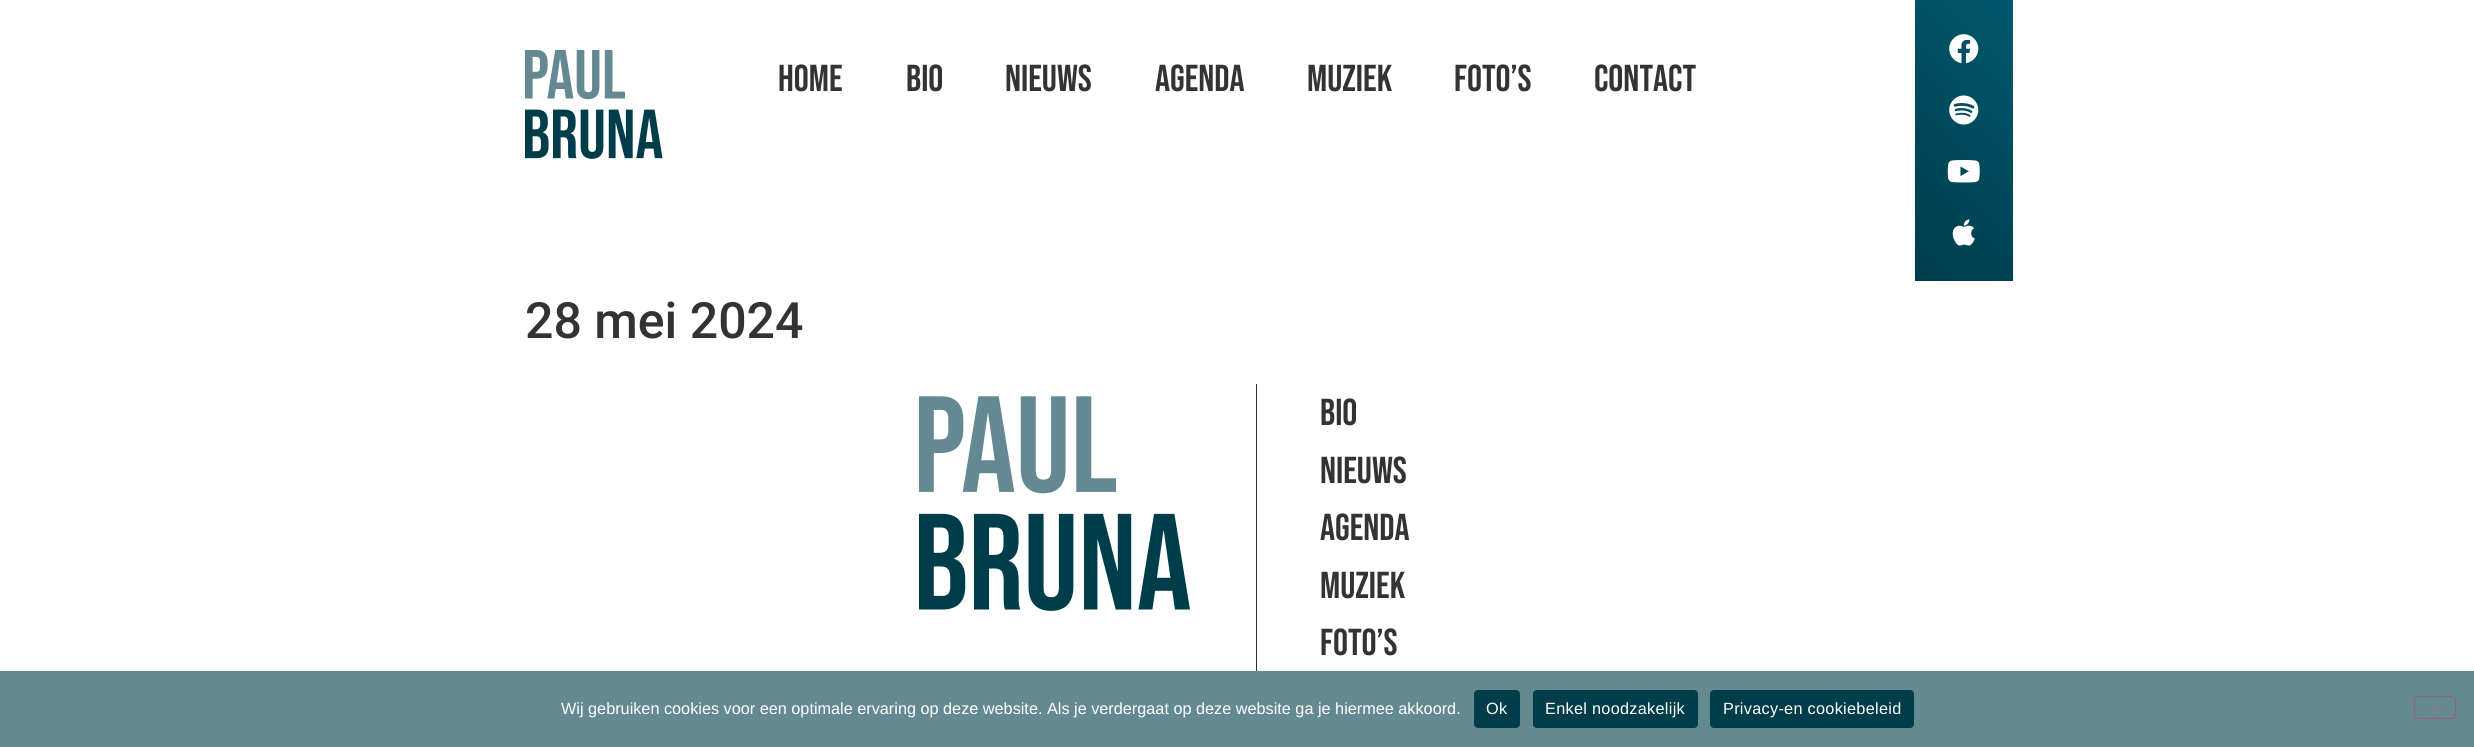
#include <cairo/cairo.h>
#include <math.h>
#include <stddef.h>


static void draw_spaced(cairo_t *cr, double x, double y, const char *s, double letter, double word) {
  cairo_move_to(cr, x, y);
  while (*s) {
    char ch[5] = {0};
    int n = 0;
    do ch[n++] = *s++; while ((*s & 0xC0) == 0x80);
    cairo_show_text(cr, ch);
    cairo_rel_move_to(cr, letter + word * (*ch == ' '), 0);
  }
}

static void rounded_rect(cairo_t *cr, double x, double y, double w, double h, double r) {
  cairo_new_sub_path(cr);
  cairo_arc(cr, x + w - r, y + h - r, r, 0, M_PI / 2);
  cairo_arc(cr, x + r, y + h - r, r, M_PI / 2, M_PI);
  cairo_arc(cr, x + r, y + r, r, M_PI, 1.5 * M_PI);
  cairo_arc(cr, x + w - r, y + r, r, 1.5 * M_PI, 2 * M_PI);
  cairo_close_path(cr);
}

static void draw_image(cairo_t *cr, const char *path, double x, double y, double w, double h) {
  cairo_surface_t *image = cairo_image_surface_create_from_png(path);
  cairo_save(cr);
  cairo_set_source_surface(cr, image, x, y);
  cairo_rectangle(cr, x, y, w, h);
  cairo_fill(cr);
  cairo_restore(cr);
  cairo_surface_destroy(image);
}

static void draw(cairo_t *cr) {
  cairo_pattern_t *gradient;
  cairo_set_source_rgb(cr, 1, 1, 1);
  cairo_paint(cr);
  draw_image(cr, "images/1.png", 525, 50, 138, 109);
  gradient = cairo_pattern_create_linear(1869, 235, 2058, 46);
  cairo_pattern_add_color_stop_rgba(gradient, 0, 0, 61 / 255.0, 75 / 255.0, 1);
  cairo_pattern_add_color_stop_rgba(gradient, 1, 0, 88 / 255.0, 110 / 255.0, 1);
  cairo_set_source(cr, gradient);
  cairo_pattern_destroy(gradient);
  cairo_rectangle(cr, 1915, 0, 98, 281);
  cairo_fill(cr);
  draw_image(cr, "images/2.png", 1949, 34, 30, 30);
  draw_image(cr, "images/3.png", 1949, 95, 30, 30);
  draw_image(cr, "images/4.png", 1947, 160, 33, 23);
  draw_image(cr, "images/5.png", 1952, 219, 23, 27);
  draw_image(cr, "images/6.png", 919, 396, 271, 215);
  cairo_set_source_rgb(cr, 51 / 255.0, 51 / 255.0, 51 / 255.0);
  cairo_rectangle(cr, 1256, 384, 1, 287);
  cairo_fill(cr);
  cairo_set_source_rgb(cr, 100 / 255.0, 137 / 255.0, 145 / 255.0);
  cairo_rectangle(cr, 0, 671, 2474, 76);
  cairo_fill(cr);
  cairo_set_source_rgb(cr, 0, 61 / 255.0, 75 / 255.0);
  rounded_rect(cr, 1474, 690, 46, 38, 4);
  cairo_fill(cr);
  rounded_rect(cr, 1533, 690, 165, 38, 4);
  cairo_fill(cr);
  rounded_rect(cr, 1710, 690, 204, 38, 4);
  cairo_fill(cr);
  rounded_rect(cr, 2414.5, 696.5, 41, 22, 3.5);
  cairo_set_source_rgb(cr, 152 / 255.0, 94 / 255.0, 124 / 255.0);
  cairo_set_line_width(cr, 1);
  cairo_stroke(cr);
  cairo_set_source_rgb(cr, 114 / 255.0, 133 / 255.0, 137 / 255.0);
  cairo_new_path(cr);
  cairo_move_to(cr, 2442, 703.5);
  cairo_line_to(cr, 2444, 705);
  cairo_line_to(cr, 2430.5, 718.5);
  cairo_line_to(cr, 2428.5, 716.5);
  cairo_close_path(cr);
  cairo_fill(cr);
  cairo_new_path(cr);
  cairo_move_to(cr, 2428.5, 705);
  cairo_line_to(cr, 2430.5, 703.5);
  cairo_line_to(cr, 2444, 716.5);
  cairo_line_to(cr, 2442, 718.5);
  cairo_close_path(cr);
  cairo_fill(cr);
  cairo_select_font_face(cr, "Bebas Neue", CAIRO_FONT_SLANT_NORMAL, CAIRO_FONT_WEIGHT_NORMAL);
  cairo_set_font_size(cr, 37.5);
  cairo_set_source_rgb(cr, 51 / 255.0, 51 / 255.0, 51 / 255.0);
  cairo_move_to(cr, 778, 91);
  cairo_show_text(cr, "Home");
  cairo_move_to(cr, 906, 91);
  cairo_show_text(cr, "Bio");
  cairo_move_to(cr, 1005, 91);
  cairo_show_text(cr, "Nieuws");
  cairo_move_to(cr, 1155, 91);
  cairo_show_text(cr, "Agenda");
  cairo_move_to(cr, 1307, 91);
  cairo_show_text(cr, "Muziek");
  cairo_move_to(cr, 1454, 91);
  cairo_show_text(cr, "Foto’s");
  cairo_move_to(cr, 1594, 91);
  cairo_show_text(cr, "Contact");
  cairo_select_font_face(cr, "Roboto Medium", CAIRO_FONT_SLANT_NORMAL, CAIRO_FONT_WEIGHT_NORMAL);
  cairo_set_font_size(cr, 50);
  cairo_move_to(cr, 525, 338);
  cairo_show_text(cr, "28 mei 2024");
  cairo_select_font_face(cr, "Bebas Neue", CAIRO_FONT_SLANT_NORMAL, CAIRO_FONT_WEIGHT_NORMAL);
  cairo_set_font_size(cr, 37.5);
  cairo_move_to(cr, 1320, 425);
  cairo_show_text(cr, "Bio");
  cairo_move_to(cr, 1320, 483);
  cairo_show_text(cr, "Nieuws");
  cairo_move_to(cr, 1320, 540);
  cairo_show_text(cr, "Agenda");
  cairo_move_to(cr, 1320, 598);
  cairo_show_text(cr, "Muziek");
  cairo_move_to(cr, 1320, 655);
  cairo_show_text(cr, "Foto’s");
  cairo_select_font_face(cr, "Liberation Sans", CAIRO_FONT_SLANT_NORMAL, CAIRO_FONT_WEIGHT_NORMAL);
  cairo_set_font_size(cr, 16.25);
  cairo_set_source_rgb(cr, 1, 1, 1);
  cairo_move_to(cr, 561, 714);
  cairo_show_text(cr, "Wij gebruiken cookies voor een optimale ervaring op deze website. Als je verdergaat op deze website ga je hiermee akkoord.");
  draw_spaced(cr, 1486, 714, "Ok", 0.3, 0);
  draw_spaced(cr, 1545, 714, "Enkel noodzakelijk", 0.3, 0);
  draw_spaced(cr, 1723, 714, "Privacy-en cookiebeleid", 0.3, 0);
}

int main(void) {
  cairo_surface_t *surface = cairo_image_surface_create(CAIRO_FORMAT_RGB24, 2474, 747);
  cairo_t *cr = cairo_create(surface);
  cairo_font_options_t *options = cairo_font_options_create();
  cairo_font_options_set_hint_metrics(options, CAIRO_HINT_METRICS_OFF);
  cairo_font_options_set_hint_style(options, CAIRO_HINT_STYLE_NONE);
  cairo_set_font_options(cr, options);
  cairo_set_miter_limit(cr, 4);
  draw(cr);
  cairo_surface_write_to_png(surface, "out.png");
  cairo_font_options_destroy(options);
  cairo_destroy(cr);
  cairo_surface_destroy(surface);
  return 0;
}
